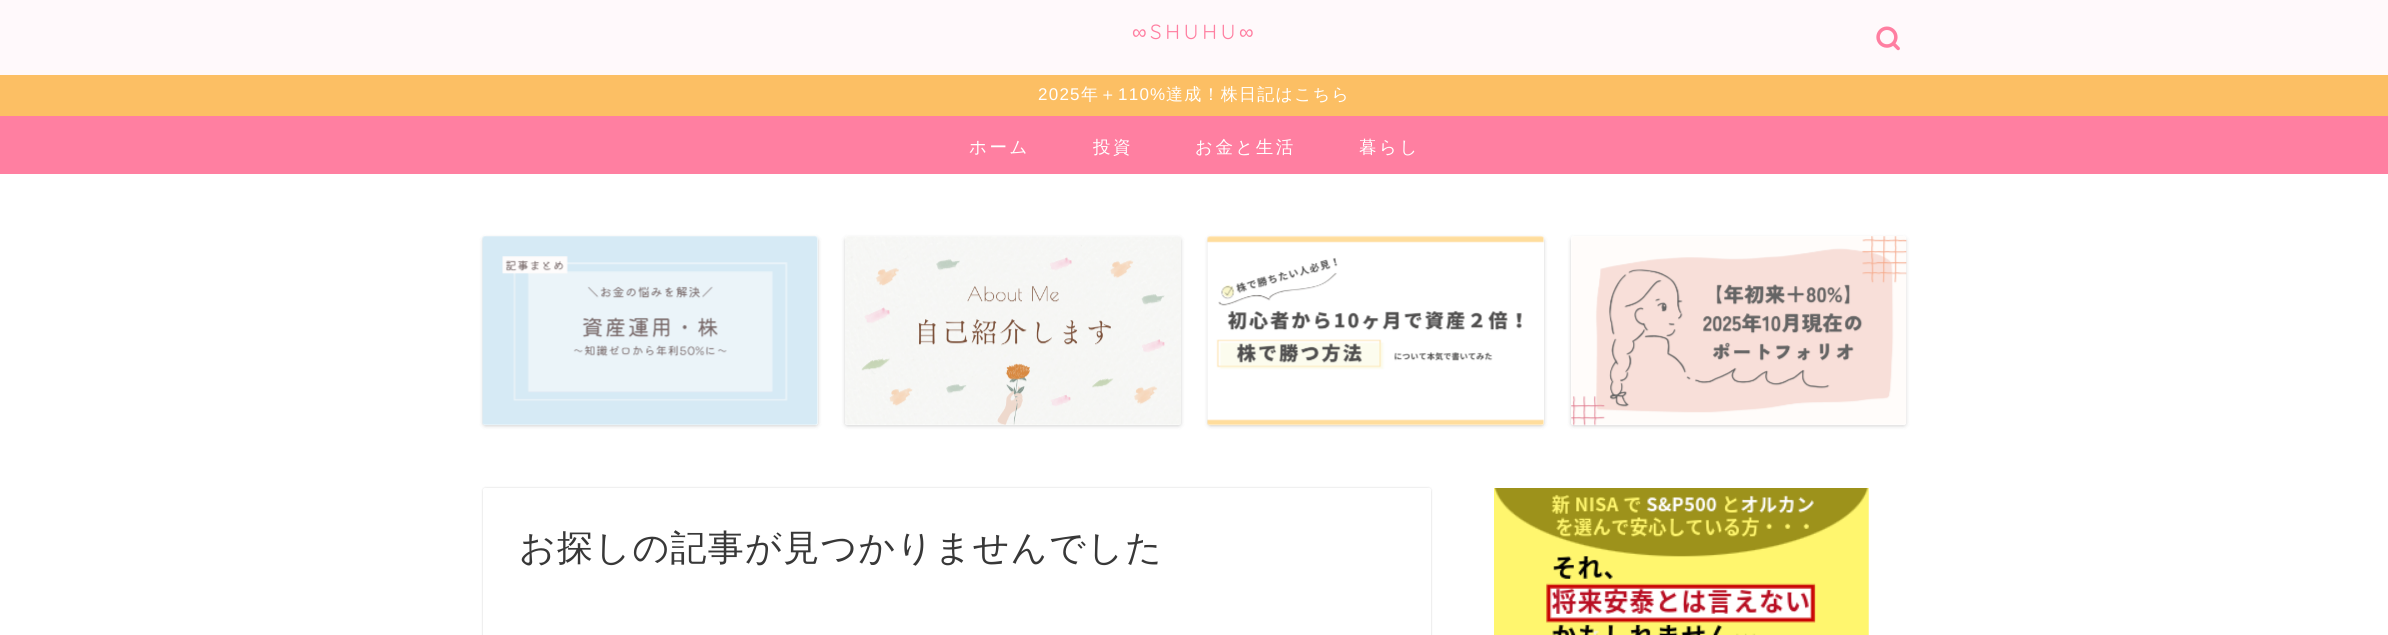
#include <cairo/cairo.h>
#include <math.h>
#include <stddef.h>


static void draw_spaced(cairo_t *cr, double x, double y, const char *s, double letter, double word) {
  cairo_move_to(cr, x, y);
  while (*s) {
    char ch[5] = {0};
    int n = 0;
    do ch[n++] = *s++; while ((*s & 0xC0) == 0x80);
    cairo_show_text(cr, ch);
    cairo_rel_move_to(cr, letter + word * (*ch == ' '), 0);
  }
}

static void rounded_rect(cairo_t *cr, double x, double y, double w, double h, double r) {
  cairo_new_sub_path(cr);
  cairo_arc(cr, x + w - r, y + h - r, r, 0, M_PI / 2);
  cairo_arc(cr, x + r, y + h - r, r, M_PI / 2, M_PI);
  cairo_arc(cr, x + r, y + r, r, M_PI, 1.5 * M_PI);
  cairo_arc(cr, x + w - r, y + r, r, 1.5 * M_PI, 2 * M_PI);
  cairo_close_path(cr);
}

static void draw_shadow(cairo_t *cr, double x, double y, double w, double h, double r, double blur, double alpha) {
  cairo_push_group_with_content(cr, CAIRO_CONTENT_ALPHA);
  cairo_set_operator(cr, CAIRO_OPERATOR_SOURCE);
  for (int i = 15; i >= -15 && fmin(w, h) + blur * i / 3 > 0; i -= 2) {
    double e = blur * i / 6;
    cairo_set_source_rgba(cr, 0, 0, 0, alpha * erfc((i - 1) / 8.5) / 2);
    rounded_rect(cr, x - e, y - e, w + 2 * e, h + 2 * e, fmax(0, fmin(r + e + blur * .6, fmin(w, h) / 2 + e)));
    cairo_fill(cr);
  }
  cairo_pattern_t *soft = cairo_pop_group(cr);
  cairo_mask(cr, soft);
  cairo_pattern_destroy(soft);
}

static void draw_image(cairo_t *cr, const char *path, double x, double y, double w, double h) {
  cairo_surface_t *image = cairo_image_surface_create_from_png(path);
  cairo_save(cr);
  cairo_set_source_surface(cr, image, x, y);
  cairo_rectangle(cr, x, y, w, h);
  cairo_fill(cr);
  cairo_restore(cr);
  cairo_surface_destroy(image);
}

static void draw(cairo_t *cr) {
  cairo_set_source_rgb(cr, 1, 1, 1);
  cairo_paint(cr);
  cairo_set_source_rgb(cr, 1, 249 / 255.0, 251 / 255.0);
  cairo_rectangle(cr, 0, 0, 2388, 75);
  cairo_fill(cr);
  draw_image(cr, "images/1.png", 1876, 26, 24, 25);
  cairo_set_source_rgb(cr, 252 / 255.0, 191 / 255.0, 100 / 255.0);
  cairo_rectangle(cr, 0, 75, 2388, 41);
  cairo_fill(cr);
  cairo_set_source_rgb(cr, 1, 127 / 255.0, 161 / 255.0);
  cairo_rectangle(cr, 0, 116, 2388, 58);
  cairo_fill(cr);
  cairo_set_source_rgb(cr, 0, 0, 0);
  draw_shadow(cr, 483, 238, 335, 188, 2.5, 2, 0.18);
  cairo_set_source_rgb(cr, 1, 1, 1);
  rounded_rect(cr, 483, 236, 335, 189, 2.5);
  cairo_fill(cr);
  cairo_set_source_rgba(cr, 1, 1, 1, 0.9);
  rounded_rect(cr, 483, 236, 335, 189, 2.5);
  cairo_fill(cr);
  draw_image(cr, "images/2.png", 482, 236, 336, 189);
  cairo_set_source_rgb(cr, 0, 0, 0);
  draw_shadow(cr, 845, 238, 336, 188, 2.5, 2, 0.18);
  cairo_set_source_rgb(cr, 1, 1, 1);
  rounded_rect(cr, 845, 236, 336, 189, 2.5);
  cairo_fill(cr);
  draw_image(cr, "images/3.png", 845, 236, 336, 189);
  cairo_set_source_rgb(cr, 0, 0, 0);
  draw_shadow(cr, 1208, 238, 336, 188, 2.5, 2, 0.18);
  cairo_set_source_rgb(cr, 1, 1, 1);
  rounded_rect(cr, 1208, 236, 336, 189, 2.5);
  cairo_fill(cr);
  cairo_set_source_rgba(cr, 1, 1, 1, 0.9);
  rounded_rect(cr, 1208, 236, 336, 189, 2.5);
  cairo_fill(cr);
  draw_image(cr, "images/4.png", 1207, 236, 337, 190);
  cairo_set_source_rgb(cr, 0, 0, 0);
  draw_shadow(cr, 1571, 238, 335, 188, 2.5, 2, 0.18);
  cairo_set_source_rgb(cr, 1, 1, 1);
  rounded_rect(cr, 1571, 236, 335, 189, 2.5);
  cairo_fill(cr);
  cairo_set_source_rgba(cr, 1, 1, 1, 0.9);
  rounded_rect(cr, 1571, 236, 335, 189, 2.5);
  cairo_fill(cr);
  draw_image(cr, "images/5.png", 1571, 236, 336, 190);
  cairo_save(cr);
  cairo_set_fill_rule(cr, CAIRO_FILL_RULE_EVEN_ODD);
  cairo_new_path(cr);
  cairo_move_to(cr, 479, 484);
  cairo_line_to(cr, 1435, 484);
  cairo_line_to(cr, 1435, 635);
  cairo_line_to(cr, 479, 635);
  cairo_close_path(cr);
  cairo_move_to(cr, 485.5, 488);
  cairo_line_to(cr, 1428.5, 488);
  cairo_curve_to(cr, 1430, 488, 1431, 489, 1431, 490.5);
  cairo_line_to(cr, 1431, 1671.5);
  cairo_curve_to(cr, 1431, 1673, 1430, 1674, 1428.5, 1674);
  cairo_line_to(cr, 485.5, 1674);
  cairo_curve_to(cr, 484, 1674, 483, 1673, 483, 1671.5);
  cairo_line_to(cr, 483, 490.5);
  cairo_curve_to(cr, 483, 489, 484, 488, 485.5, 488);
  cairo_close_path(cr);
  cairo_clip(cr);
  cairo_set_source_rgb(cr, 0, 0, 0);
  draw_shadow(cr, 483, 488, 948, 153, 2.5, 1, 0.18);
  cairo_restore(cr);
  draw_image(cr, "images/6.png", 1494, 488, 375, 147);
  cairo_select_font_face(cr, "Liberation Sans", CAIRO_FONT_SLANT_NORMAL, CAIRO_FONT_WEIGHT_NORMAL);
  cairo_set_font_size(cr, 20.5);
  cairo_set_source_rgb(cr, 1, 127 / 255.0, 161 / 255.0);
  draw_spaced(cr, 1132, 39, "∞", 3.75, 0);
  cairo_select_font_face(cr, "Quicksand Light", CAIRO_FONT_SLANT_NORMAL, CAIRO_FONT_WEIGHT_NORMAL);
  draw_spaced(cr, 1150, 39, "SHUHU", 3.75, 0);
  cairo_select_font_face(cr, "Liberation Sans", CAIRO_FONT_SLANT_NORMAL, CAIRO_FONT_WEIGHT_NORMAL);
  draw_spaced(cr, 1239, 39, "∞", 3.75, 0);
  cairo_set_font_size(cr, 17);
  cairo_set_source_rgb(cr, 1, 1, 1);
  draw_spaced(cr, 1038, 100, "2025", 1.25, 0);
  cairo_select_font_face(cr, "WenQuanYi Zen Hei Medium", CAIRO_FONT_SLANT_NORMAL, CAIRO_FONT_WEIGHT_NORMAL);
  draw_spaced(cr, 1081, 100, "年＋", 1.25, 0);
  cairo_select_font_face(cr, "Liberation Sans", CAIRO_FONT_SLANT_NORMAL, CAIRO_FONT_WEIGHT_NORMAL);
  draw_spaced(cr, 1118, 100, "110%", 1.25, 0);
  cairo_select_font_face(cr, "WenQuanYi Zen Hei Medium", CAIRO_FONT_SLANT_NORMAL, CAIRO_FONT_WEIGHT_NORMAL);
  draw_spaced(cr, 1166, 100, "達成！株日記はこちら", 1.25, 0);
  cairo_set_font_size(cr, 17.5);
  draw_spaced(cr, 969, 153, "ホーム", 2.5, 0);
  draw_spaced(cr, 1093, 153, "投資", 2.5, 0);
  draw_spaced(cr, 1195, 153, "お金と生活", 2.5, 0);
  draw_spaced(cr, 1359, 153, "暮らし", 2.5, 0);
  cairo_set_font_size(cr, 36);
  cairo_set_source_rgb(cr, 56 / 255.0, 56 / 255.0, 56 / 255.0);
  draw_spaced(cr, 519, 560, "お探しの記事が見つかりませんでした", 1.25, 0);
}

int main(void) {
  cairo_surface_t *surface = cairo_image_surface_create(CAIRO_FORMAT_RGB24, 2388, 635);
  cairo_t *cr = cairo_create(surface);
  cairo_font_options_t *options = cairo_font_options_create();
  cairo_font_options_set_hint_metrics(options, CAIRO_HINT_METRICS_OFF);
  cairo_font_options_set_hint_style(options, CAIRO_HINT_STYLE_NONE);
  cairo_set_font_options(cr, options);
  cairo_set_miter_limit(cr, 4);
  draw(cr);
  cairo_surface_write_to_png(surface, "out.png");
  cairo_font_options_destroy(options);
  cairo_destroy(cr);
  cairo_surface_destroy(surface);
  return 0;
}
